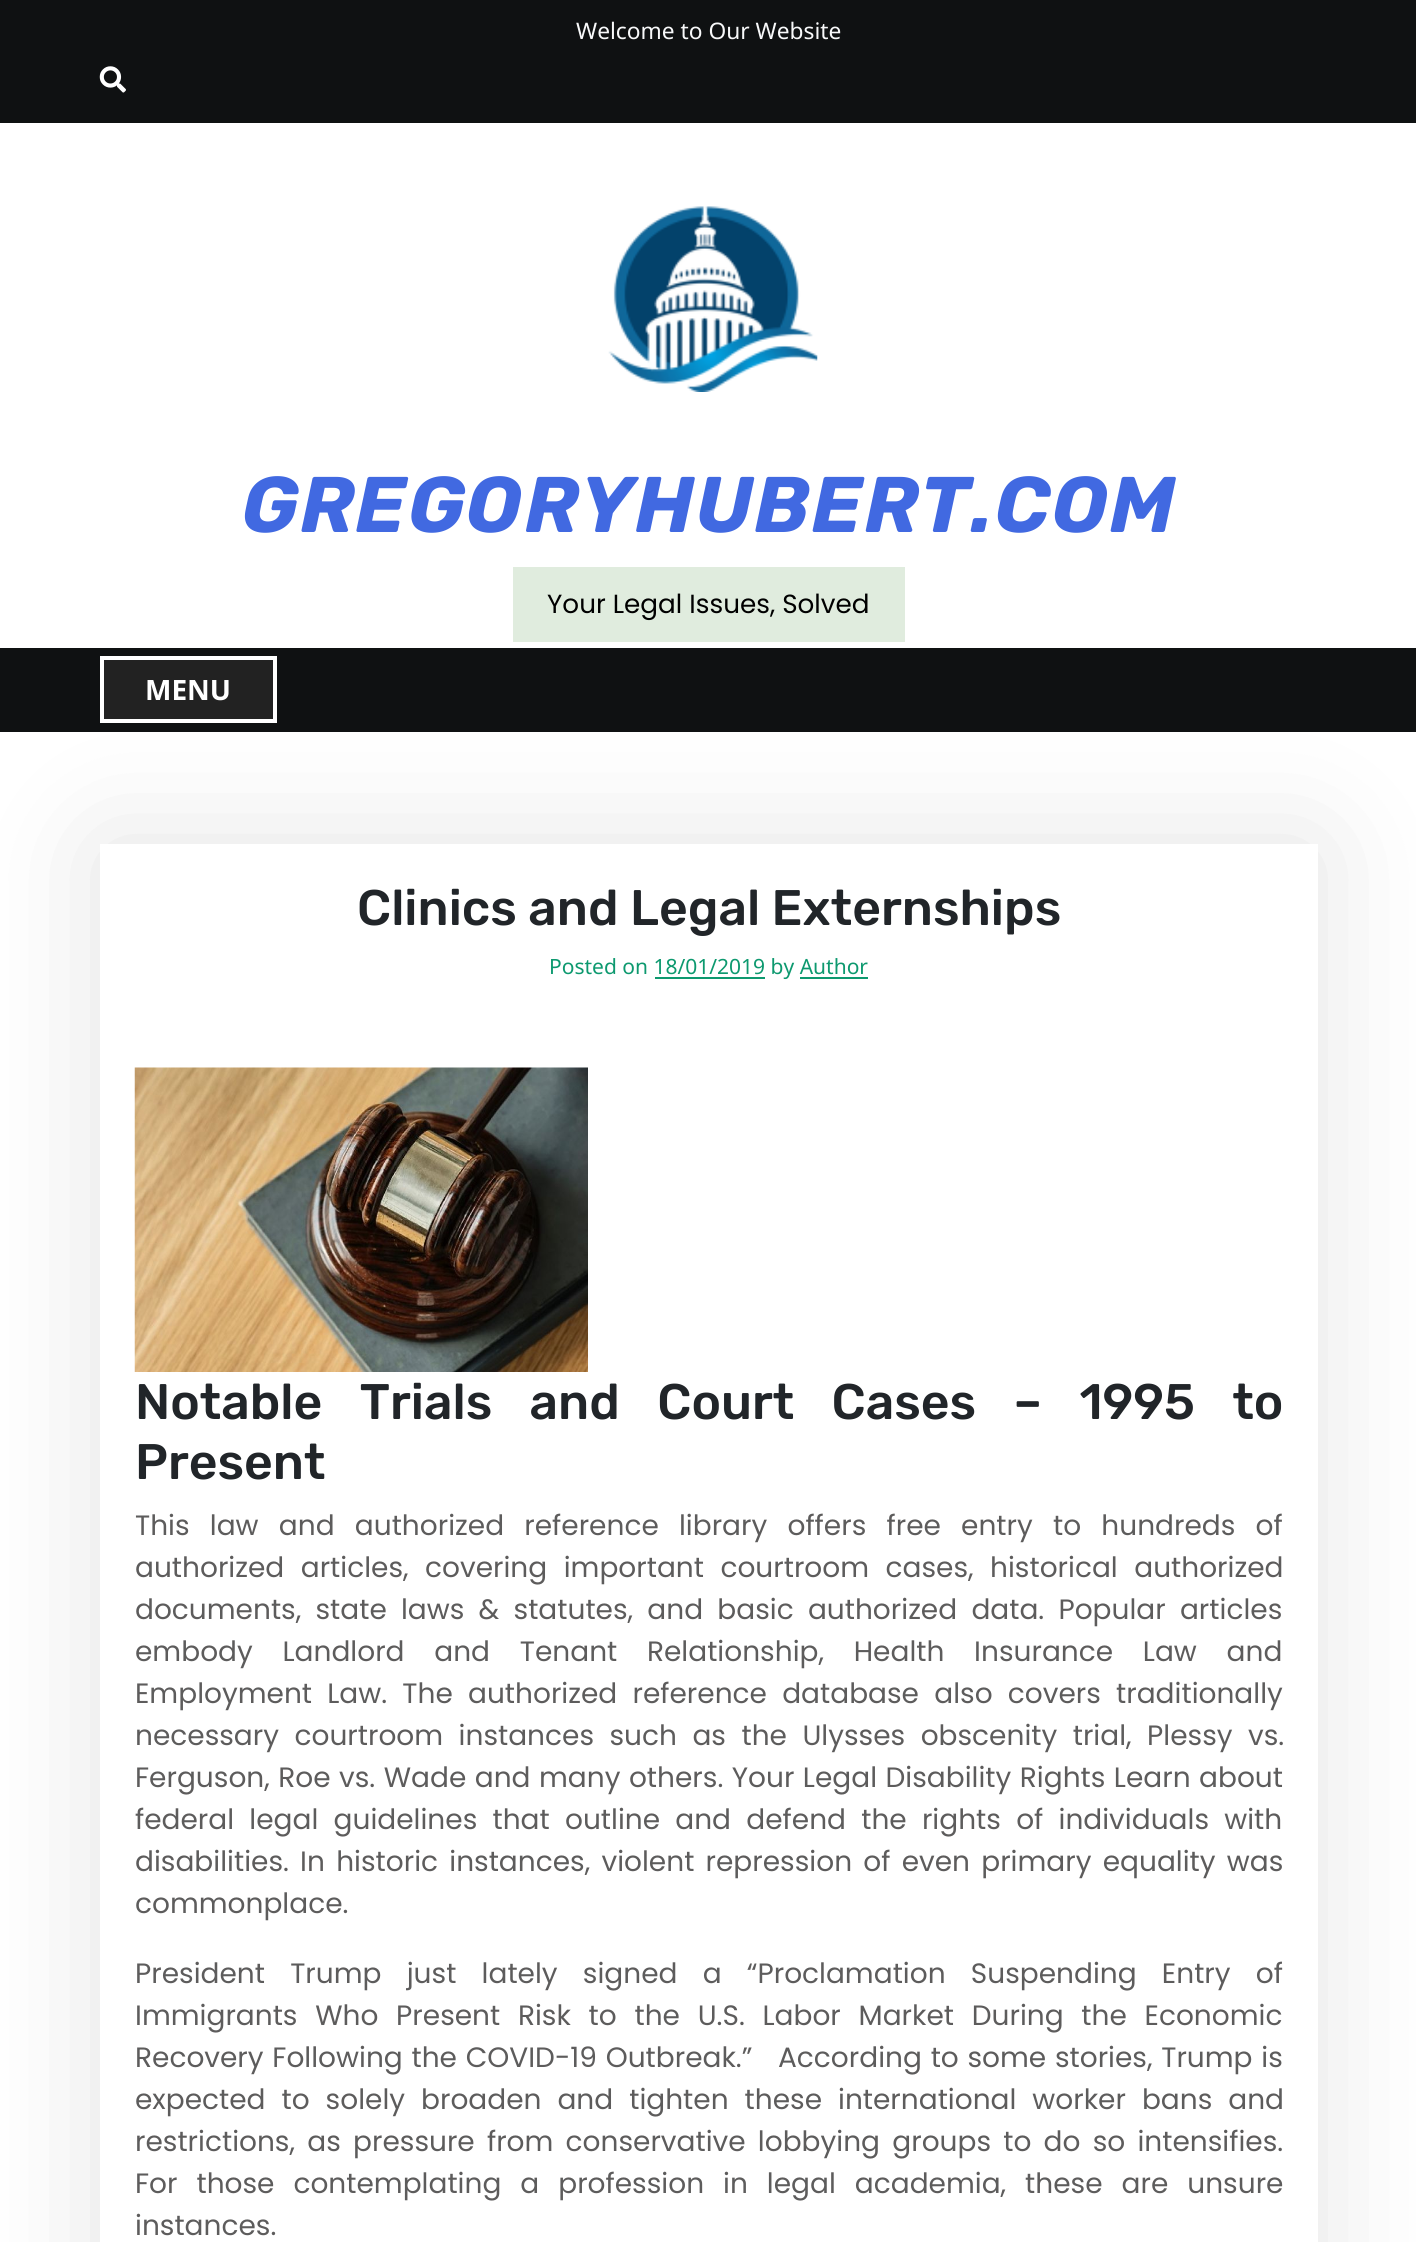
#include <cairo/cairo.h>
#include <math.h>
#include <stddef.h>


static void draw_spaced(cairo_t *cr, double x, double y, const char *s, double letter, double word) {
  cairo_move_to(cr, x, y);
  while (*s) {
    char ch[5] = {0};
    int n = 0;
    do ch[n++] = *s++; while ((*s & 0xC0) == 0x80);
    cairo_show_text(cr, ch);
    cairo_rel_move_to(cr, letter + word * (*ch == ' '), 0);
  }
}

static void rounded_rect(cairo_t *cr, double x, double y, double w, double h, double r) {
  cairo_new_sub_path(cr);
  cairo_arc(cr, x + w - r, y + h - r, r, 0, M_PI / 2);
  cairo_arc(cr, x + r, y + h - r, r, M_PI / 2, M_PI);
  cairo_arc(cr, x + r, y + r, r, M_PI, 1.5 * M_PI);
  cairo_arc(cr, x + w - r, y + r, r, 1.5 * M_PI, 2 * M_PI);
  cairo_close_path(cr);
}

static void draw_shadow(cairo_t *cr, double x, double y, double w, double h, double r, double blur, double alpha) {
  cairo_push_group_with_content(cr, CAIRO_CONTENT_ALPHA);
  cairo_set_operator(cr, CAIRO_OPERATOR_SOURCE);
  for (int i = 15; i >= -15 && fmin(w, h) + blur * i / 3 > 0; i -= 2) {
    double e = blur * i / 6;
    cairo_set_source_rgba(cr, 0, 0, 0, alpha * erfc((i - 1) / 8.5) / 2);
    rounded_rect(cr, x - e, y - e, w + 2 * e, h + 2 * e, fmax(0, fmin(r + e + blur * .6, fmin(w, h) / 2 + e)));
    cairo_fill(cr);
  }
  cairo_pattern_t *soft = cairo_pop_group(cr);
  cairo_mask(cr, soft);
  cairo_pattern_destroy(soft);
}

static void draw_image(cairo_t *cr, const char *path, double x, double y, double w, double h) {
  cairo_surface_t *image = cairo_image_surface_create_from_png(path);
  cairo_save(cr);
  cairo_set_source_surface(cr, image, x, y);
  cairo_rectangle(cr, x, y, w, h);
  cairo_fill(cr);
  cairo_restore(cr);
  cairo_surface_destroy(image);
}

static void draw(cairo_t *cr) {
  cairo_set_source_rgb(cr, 1, 1, 1);
  cairo_paint(cr);
  cairo_set_source_rgb(cr, 15 / 255.0, 17 / 255.0, 18 / 255.0);
  cairo_rectangle(cr, 0, 0, 1416, 123);
  cairo_fill(cr);
  draw_image(cr, "images/1.png", 99, 66, 27, 27);
  draw_image(cr, "images/2.png", 608, 206, 210, 186);
  cairo_set_source_rgb(cr, 224 / 255.0, 236 / 255.0, 222 / 255.0);
  cairo_rectangle(cr, 513, 567, 392, 75);
  cairo_fill(cr);
  cairo_set_source_rgb(cr, 15 / 255.0, 17 / 255.0, 18 / 255.0);
  cairo_rectangle(cr, 0, 648, 1416, 84);
  cairo_fill(cr);
  cairo_set_source_rgb(cr, 0, 0, 0);
  draw_shadow(cr, 100, 844, 1218, 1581, 0, 61, 0.11);
  cairo_set_source_rgb(cr, 34 / 255.0, 34 / 255.0, 34 / 255.0);
  cairo_rectangle(cr, 102, 658, 173, 63);
  cairo_fill_preserve(cr);
  cairo_set_source_rgb(cr, 1, 1, 1);
  cairo_set_line_width(cr, 4);
  cairo_stroke(cr);
  cairo_rectangle(cr, 100, 844, 1218, 1398);
  cairo_fill(cr);
  cairo_set_source_rgb(cr, 13 / 255.0, 153 / 255.0, 111 / 255.0);
  cairo_rectangle(cr, 655, 977, 110, 2);
  cairo_fill(cr);
  cairo_rectangle(cr, 800, 977, 68, 2);
  cairo_fill(cr);
  draw_image(cr, "images/3.png", 134, 1067, 454, 305);
  cairo_select_font_face(cr, "Noto Sans", CAIRO_FONT_SLANT_NORMAL, CAIRO_FONT_WEIGHT_NORMAL);
  cairo_set_font_size(cr, 22.75);
  cairo_set_source_rgb(cr, 248 / 255.0, 249 / 255.0, 250 / 255.0);
  cairo_move_to(cr, 576, 39);
  cairo_show_text(cr, "Welcome to Our Website");
  cairo_select_font_face(cr, "Rubik", CAIRO_FONT_SLANT_ITALIC, CAIRO_FONT_WEIGHT_BOLD);
  cairo_set_font_size(cr, 78.75);
  cairo_set_source_rgb(cr, 65 / 255.0, 105 / 255.0, 225 / 255.0);
  draw_spaced(cr, 241, 532, "GREGORYHUBERT.COM", 1.75, 0);
  cairo_select_font_face(cr, "Poppins", CAIRO_FONT_SLANT_NORMAL, CAIRO_FONT_WEIGHT_NORMAL);
  cairo_set_font_size(cr, 26.25);
  cairo_set_source_rgb(cr, 0, 0, 0);
  cairo_move_to(cr, 547, 613);
  cairo_show_text(cr, "Your Legal Issues, Solved");
  cairo_select_font_face(cr, "Noto Sans", CAIRO_FONT_SLANT_NORMAL, CAIRO_FONT_WEIGHT_BOLD);
  cairo_set_font_size(cr, 28);
  cairo_set_source_rgb(cr, 1, 1, 1);
  cairo_move_to(cr, 145, 700);
  cairo_show_text(cr, "MENU");
  cairo_select_font_face(cr, "Rubik Medium", CAIRO_FONT_SLANT_NORMAL, CAIRO_FONT_WEIGHT_NORMAL);
  cairo_set_font_size(cr, 49.9);
  cairo_set_source_rgb(cr, 33 / 255.0, 37 / 255.0, 41 / 255.0);
  cairo_move_to(cr, 357, 925);
  cairo_show_text(cr, "Clinics and Legal Externships");
  cairo_select_font_face(cr, "Noto Sans", CAIRO_FONT_SLANT_NORMAL, CAIRO_FONT_WEIGHT_NORMAL);
  cairo_set_font_size(cr, 21);
  cairo_set_source_rgb(cr, 13 / 255.0, 153 / 255.0, 111 / 255.0);
  cairo_move_to(cr, 549, 974);
  cairo_show_text(cr, "Posted on 18/01/2019 by Author");
  cairo_select_font_face(cr, "Rubik Medium", CAIRO_FONT_SLANT_NORMAL, CAIRO_FONT_WEIGHT_NORMAL);
  cairo_set_font_size(cr, 49.9);
  cairo_set_source_rgb(cr, 33 / 255.0, 37 / 255.0, 41 / 255.0);
  draw_spaced(cr, 135, 1419, "Notable Trials and Court Cases – 1995 to", 0, 26);
  cairo_move_to(cr, 135, 1479);
  cairo_show_text(cr, "Present");
  cairo_select_font_face(cr, "Poppins", CAIRO_FONT_SLANT_NORMAL, CAIRO_FONT_WEIGHT_NORMAL);
  cairo_set_font_size(cr, 28);
  cairo_set_source_rgb(cr, 93 / 255.0, 92 / 255.0, 92 / 255.0);
  draw_spaced(cr, 135, 1535, "This law and authorized reference library offers free entry to hundreds of", 0, 12.75);
  draw_spaced(cr, 135, 1577, "authorized articles, covering important courtroom cases, historical authorized", 0, 9);
  draw_spaced(cr, 135, 1619, "documents, state laws & statutes, and basic authorized data. Popular articles", 0, 6.75);
  draw_spaced(cr, 135, 1661, "embody Landlord and Tenant Relationship, Health Insurance Law and", 0, 22.25);
  draw_spaced(cr, 135, 1703, "Employment Law. The authorized reference database also covers traditionally", 0, 7.75);
  draw_spaced(cr, 135, 1745, "necessary courtroom instances such as the Ulysses obscenity trial, Plessy vs.", 0, 8);
  draw_spaced(cr, 135, 1787, "Ferguson, Roe vs. Wade and many others. Your Legal Disability Rights Learn about", 0, 1);
  draw_spaced(cr, 135, 1829, "federal legal guidelines that outline and defend the rights of individuals with", 0, 7.75);
  draw_spaced(cr, 135, 1871, "disabilities. In historic instances, violent repression of even primary equality was", 0, 3.75);
  cairo_move_to(cr, 135, 1913);
  cairo_show_text(cr, "commonplace.");
  draw_spaced(cr, 135, 1983, "President Trump just lately signed a “Proclamation Suspending Entry of", 0, 17.75);
  draw_spaced(cr, 135, 2025, "Immigrants Who Present Risk to the U.S. Labor Market During the Economic", 0, 10.25);
  draw_spaced(cr, 135, 2067, "Recovery Following the COVID-19 Outbreak.”", 0, 1.25);
  draw_spaced(cr, 778, 2067, "According to some stories, Trump is", 0, 1.25);
  draw_spaced(cr, 135, 2109, "expected to solely broaden and tighten these international worker bans and", 0, 8.5);
  draw_spaced(cr, 135, 2151, "restrictions, as pressure from conservative lobbying groups to do so intensifies.", 0, 4.75);
  draw_spaced(cr, 135, 2193, "For those contemplating a profession in legal academia, these are unsure", 0, 11.5);
  cairo_move_to(cr, 135, 2235);
  cairo_show_text(cr, "instances.");
}

int main(void) {
  cairo_surface_t *surface = cairo_image_surface_create(CAIRO_FORMAT_RGB24, 1416, 2242);
  cairo_t *cr = cairo_create(surface);
  cairo_font_options_t *options = cairo_font_options_create();
  cairo_font_options_set_hint_metrics(options, CAIRO_HINT_METRICS_OFF);
  cairo_font_options_set_hint_style(options, CAIRO_HINT_STYLE_NONE);
  cairo_set_font_options(cr, options);
  cairo_set_miter_limit(cr, 4);
  draw(cr);
  cairo_surface_write_to_png(surface, "out.png");
  cairo_font_options_destroy(options);
  cairo_destroy(cr);
  cairo_surface_destroy(surface);
  return 0;
}
